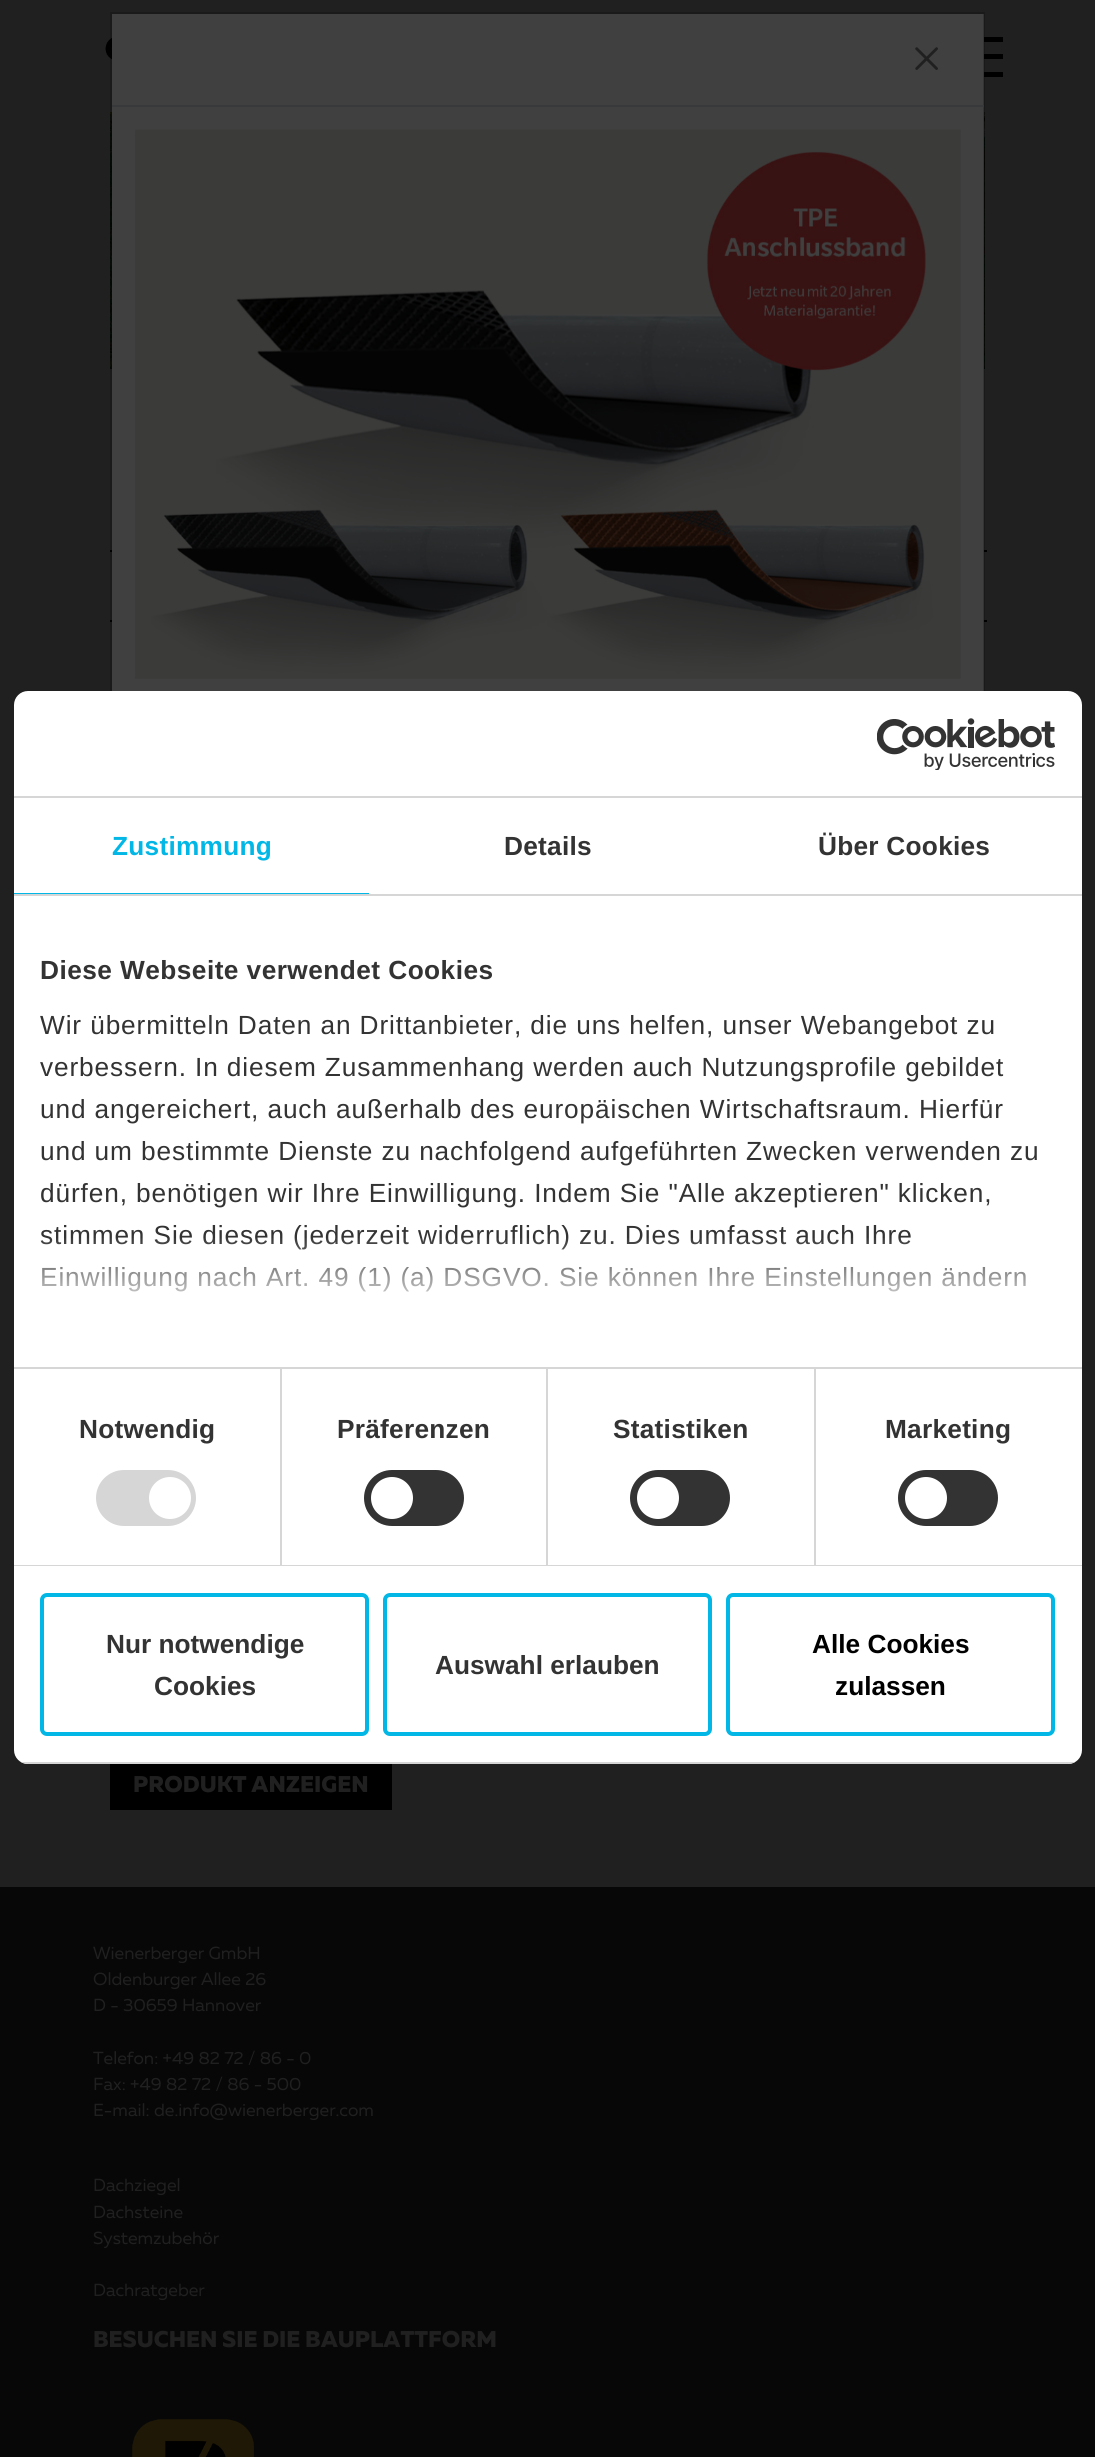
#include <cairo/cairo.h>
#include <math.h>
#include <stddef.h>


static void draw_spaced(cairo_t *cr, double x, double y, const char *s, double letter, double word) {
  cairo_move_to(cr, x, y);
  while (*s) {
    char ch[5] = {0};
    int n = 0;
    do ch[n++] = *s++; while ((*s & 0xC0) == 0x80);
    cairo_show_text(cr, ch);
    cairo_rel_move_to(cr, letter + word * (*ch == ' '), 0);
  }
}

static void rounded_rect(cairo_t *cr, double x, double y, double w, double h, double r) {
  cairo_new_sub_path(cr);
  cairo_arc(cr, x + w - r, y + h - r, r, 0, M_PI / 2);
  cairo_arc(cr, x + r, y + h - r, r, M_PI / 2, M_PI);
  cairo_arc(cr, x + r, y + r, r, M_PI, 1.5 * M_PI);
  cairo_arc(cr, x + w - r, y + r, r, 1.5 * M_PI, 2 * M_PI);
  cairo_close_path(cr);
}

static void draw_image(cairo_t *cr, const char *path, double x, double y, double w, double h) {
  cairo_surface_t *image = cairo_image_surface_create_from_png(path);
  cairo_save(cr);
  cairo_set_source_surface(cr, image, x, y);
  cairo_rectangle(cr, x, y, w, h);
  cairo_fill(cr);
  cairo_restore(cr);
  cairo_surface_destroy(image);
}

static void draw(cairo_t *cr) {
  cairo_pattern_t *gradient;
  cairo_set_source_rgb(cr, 32 / 255.0, 32 / 255.0, 32 / 255.0);
  cairo_paint(cr);
  draw_image(cr, "images/5.png", 110, 112, 875, 257);
  cairo_set_source_rgb(cr, 64 / 255.0, 64 / 255.0, 64 / 255.0);
  cairo_rectangle(cr, 112, 14, 872, 677);
  cairo_fill(cr);
  draw_image(cr, "images/3.png", 105, 37, 7, 23);
  cairo_set_source_rgb(cr, 0, 0, 0);
  cairo_rectangle(cr, 984, 37, 19, 5);
  cairo_fill(cr);
  cairo_rectangle(cr, 984, 54, 19, 5);
  cairo_fill(cr);
  cairo_rectangle(cr, 984, 72, 19, 5);
  cairo_fill(cr);
  cairo_rectangle(cr, 110, 550, 2, 2);
  cairo_fill(cr);
  cairo_rectangle(cr, 984, 550, 3, 2);
  cairo_fill(cr);
  cairo_rectangle(cr, 110, 620, 2, 2);
  cairo_fill(cr);
  cairo_rectangle(cr, 984, 620, 3, 2);
  cairo_fill(cr);
  cairo_rectangle(cr, 111, 13, 873, 1078);
  cairo_set_source_rgba(cr, 0, 0, 0, 0.18);
  cairo_stroke(cr);
  cairo_set_source_rgb(cr, 56 / 255.0, 57 / 255.0, 58 / 255.0);
  cairo_rectangle(cr, 112, 105, 872, 2);
  cairo_fill(cr);
  draw_image(cr, "images/1.png", 915, 47, 23, 23);
  draw_image(cr, "images/2.png", 135, 129, 826, 550);
  cairo_set_source_rgb(cr, 1, 1, 1);
  rounded_rect(cr, 14, 691, 1068, 1073, 14);
  cairo_fill(cr);
  cairo_set_source_rgb(cr, 214 / 255.0, 214 / 255.0, 214 / 255.0);
  cairo_rectangle(cr, 14, 796, 1068, 2);
  cairo_fill(cr);
  draw_image(cr, "images/4.png", 877, 718, 178, 52);
  cairo_rectangle(cr, 14, 894, 1068, 2);
  cairo_fill(cr);
  cairo_set_source_rgb(cr, 2 / 255.0, 183 / 255.0, 229 / 255.0);
  cairo_rectangle(cr, 14, 893, 355, 1);
  cairo_fill(cr);
  cairo_set_source_rgb(cr, 214 / 255.0, 214 / 255.0, 214 / 255.0);
  cairo_rectangle(cr, 14, 1367, 1068, 2);
  cairo_fill(cr);
  cairo_rectangle(cr, 14, 1565, 1068, 1);
  cairo_fill(cr);
  cairo_rectangle(cr, 280, 1369, 2, 196);
  cairo_fill(cr);
  rounded_rect(cr, 96, 1470, 100, 56, 28);
  cairo_fill(cr);
  cairo_set_source_rgb(cr, 1, 1, 1);
  cairo_arc(cr, 170, 1498, 21, 0, 2 * M_PI);
  cairo_fill(cr);
  cairo_set_source_rgb(cr, 214 / 255.0, 214 / 255.0, 214 / 255.0);
  cairo_rectangle(cr, 546, 1369, 2, 196);
  cairo_fill(cr);
  cairo_set_source_rgb(cr, 51 / 255.0, 51 / 255.0, 51 / 255.0);
  rounded_rect(cr, 364, 1470, 100, 56, 28);
  cairo_fill(cr);
  cairo_set_source_rgb(cr, 1, 1, 1);
  cairo_arc(cr, 392, 1498, 21, 0, 2 * M_PI);
  cairo_fill(cr);
  cairo_set_source_rgb(cr, 214 / 255.0, 214 / 255.0, 214 / 255.0);
  cairo_rectangle(cr, 814, 1369, 2, 196);
  cairo_fill(cr);
  cairo_set_source_rgb(cr, 51 / 255.0, 51 / 255.0, 51 / 255.0);
  rounded_rect(cr, 630, 1470, 100, 56, 28);
  cairo_fill(cr);
  cairo_set_source_rgb(cr, 1, 1, 1);
  cairo_arc(cr, 658, 1498, 21, 0, 2 * M_PI);
  cairo_fill(cr);
  cairo_set_source_rgb(cr, 51 / 255.0, 51 / 255.0, 51 / 255.0);
  rounded_rect(cr, 898, 1470, 100, 56, 28);
  cairo_fill(cr);
  cairo_set_source_rgb(cr, 1, 1, 1);
  cairo_arc(cr, 926, 1498, 21, 0, 2 * M_PI);
  cairo_fill(cr);
  cairo_save(cr);
  rounded_rect(cr, 14, 691, 1068, 1073, 14);
  cairo_clip(cr);
  cairo_set_source_rgb(cr, 214 / 255.0, 214 / 255.0, 214 / 255.0);
  cairo_rectangle(cr, 14, 1762, 1068, 2);
  cairo_fill(cr);
  cairo_restore(cr);
  rounded_rect(cr, 42, 1595, 325, 139, 5);
  cairo_set_source_rgb(cr, 2 / 255.0, 183 / 255.0, 229 / 255.0);
  cairo_set_line_width(cr, 4);
  cairo_stroke(cr);
  rounded_rect(cr, 385, 1595, 325, 139, 5);
  cairo_stroke(cr);
  rounded_rect(cr, 728, 1595, 325, 139, 5);
  cairo_stroke(cr);
  cairo_set_source_rgb(cr, 0, 0, 0);
  cairo_rectangle(cr, 110, 1764, 282, 46);
  cairo_fill(cr);
  cairo_set_source_rgb(cr, 7 / 255.0, 7 / 255.0, 7 / 255.0);
  cairo_rectangle(cr, 0, 1887, 1095, 570);
  cairo_fill(cr);
  draw_image(cr, "images/6.png", 132, 2419, 122, 38);
  cairo_select_font_face(cr, "Liberation Sans", CAIRO_FONT_SLANT_NORMAL, CAIRO_FONT_WEIGHT_BOLD);
  cairo_set_font_size(cr, 26.25);
  cairo_set_source_rgb(cr, 2 / 255.0, 183 / 255.0, 229 / 255.0);
  draw_spaced(cr, 112, 855, "Zustimmung", 0.25, 0);
  cairo_set_source_rgb(cr, 51 / 255.0, 51 / 255.0, 51 / 255.0);
  draw_spaced(cr, 504, 855, "Details", 0.25, 0);
  draw_spaced(cr, 818, 855, "Über Cookies", 0.25, 0);
  draw_spaced(cr, 40, 979, "Diese Webseite verwendet Cookies", 0.45, 0);
  cairo_select_font_face(cr, "Liberation Sans", CAIRO_FONT_SLANT_NORMAL, CAIRO_FONT_WEIGHT_NORMAL);
  draw_spaced(cr, 40, 1034, "Wir übermitteln Daten an Drittanbieter, die uns helfen, unser Webangebot zu", 0.88, 0);
  draw_spaced(cr, 40, 1076, "verbessern. In diesem Zusammenhang werden auch Nutzungsprofile gebildet", 0.88, 0);
  draw_spaced(cr, 40, 1118, "und angereichert, auch außerhalb des europäischen Wirtschaftsraum. Hierfür", 0.88, 0);
  draw_spaced(cr, 40, 1160, "und um bestimmte Dienste zu nachfolgend aufgeführten Zwecken verwenden zu", 0.88, 0);
  draw_spaced(cr, 40, 1202, "dürfen, benötigen wir Ihre Einwilligung. Indem Sie \"Alle akzeptieren\" klicken,", 0.88, 0);
  draw_spaced(cr, 40, 1244, "stimmen Sie diesen (jederzeit widerruflich) zu. Dies umfasst auch Ihre", 0.88, 0);
  draw_spaced(cr, 40, 1286, "Einwilligung nach Art. 49 (1) (a) DSGVO. Sie können Ihre Einstellungen ändern", 0.88, 0);
  gradient = cairo_pattern_create_linear(536, 1367, 536, 1236);
  cairo_pattern_add_color_stop_rgba(gradient, 0, 1, 1, 1, 1);
  cairo_pattern_add_color_stop_rgba(gradient, 0.5, 1, 1, 1, 0.8);
  cairo_pattern_add_color_stop_rgba(gradient, 1, 1, 1, 1, 0);
  cairo_set_source(cr, gradient);
  cairo_pattern_destroy(gradient);
  cairo_rectangle(cr, 41, 1238, 985, 54);
  cairo_fill(cr);
  cairo_select_font_face(cr, "Liberation Sans", CAIRO_FONT_SLANT_NORMAL, CAIRO_FONT_WEIGHT_BOLD);
  cairo_set_source_rgb(cr, 51 / 255.0, 51 / 255.0, 51 / 255.0);
  draw_spaced(cr, 79, 1438, "Notwendig", 0.25, 0);
  draw_spaced(cr, 337, 1438, "Präferenzen", 0.25, 0);
  draw_spaced(cr, 613, 1438, "Statistiken", 0.25, 0);
  draw_spaced(cr, 885, 1438, "Marketing", 0.25, 0);
  cairo_move_to(cr, 106, 1653);
  cairo_show_text(cr, "Nur notwendige");
  cairo_move_to(cr, 154, 1695);
  cairo_show_text(cr, "Cookies");
  cairo_move_to(cr, 435, 1674);
  cairo_show_text(cr, "Auswahl erlauben");
  cairo_set_source_rgb(cr, 0, 0, 0);
  cairo_move_to(cr, 812, 1653);
  cairo_show_text(cr, "Alle Cookies");
  cairo_move_to(cr, 835, 1695);
  cairo_show_text(cr, "zulassen");
  cairo_select_font_face(cr, "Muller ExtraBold", CAIRO_FONT_SLANT_NORMAL, CAIRO_FONT_WEIGHT_NORMAL);
  cairo_set_font_size(cr, 22.75);
  cairo_set_source_rgb(cr, 32 / 255.0, 32 / 255.0, 32 / 255.0);
  cairo_move_to(cr, 133, 1792);
  cairo_show_text(cr, "PRODUKT ANZEIGEN");
  cairo_select_font_face(cr, "Muller", CAIRO_FONT_SLANT_NORMAL, CAIRO_FONT_WEIGHT_NORMAL);
  cairo_set_font_size(cr, 17.5);
  cairo_move_to(cr, 93, 1959);
  cairo_show_text(cr, "Wienerberger GmbH");
  cairo_move_to(cr, 93, 1985);
  cairo_show_text(cr, "Oldenburger Allee 26");
  cairo_move_to(cr, 93, 2011);
  cairo_show_text(cr, "D - 30659 Hannover");
  cairo_move_to(cr, 93, 2064);
  cairo_show_text(cr, "Telefon: +49 82 72 / 86 - 0");
  cairo_move_to(cr, 93, 2090);
  cairo_show_text(cr, "Fax: +49 82 72 / 86 - 500");
  cairo_move_to(cr, 93, 2116);
  cairo_show_text(cr, "E-mail: de.info@wienerberger.com");
  cairo_move_to(cr, 93, 2191);
  cairo_show_text(cr, "Dachziegel");
  cairo_move_to(cr, 93, 2218);
  cairo_show_text(cr, "Dachsteine");
  cairo_move_to(cr, 93, 2244);
  cairo_show_text(cr, "Systemzubehör");
  cairo_move_to(cr, 93, 2296);
  cairo_show_text(cr, "Dachratgeber");
  cairo_select_font_face(cr, "Muller ExtraBold", CAIRO_FONT_SLANT_NORMAL, CAIRO_FONT_WEIGHT_NORMAL);
  cairo_set_font_size(cr, 22.75);
  cairo_move_to(cr, 93, 2347);
  cairo_show_text(cr, "BESUCHEN SIE DIE BAUPLATTFORM");
}

int main(void) {
  cairo_surface_t *surface = cairo_image_surface_create(CAIRO_FORMAT_RGB24, 1095, 2457);
  cairo_t *cr = cairo_create(surface);
  cairo_font_options_t *options = cairo_font_options_create();
  cairo_font_options_set_hint_metrics(options, CAIRO_HINT_METRICS_OFF);
  cairo_font_options_set_hint_style(options, CAIRO_HINT_STYLE_NONE);
  cairo_set_font_options(cr, options);
  cairo_set_miter_limit(cr, 4);
  draw(cr);
  cairo_surface_write_to_png(surface, "out.png");
  cairo_font_options_destroy(options);
  cairo_destroy(cr);
  cairo_surface_destroy(surface);
  return 0;
}
